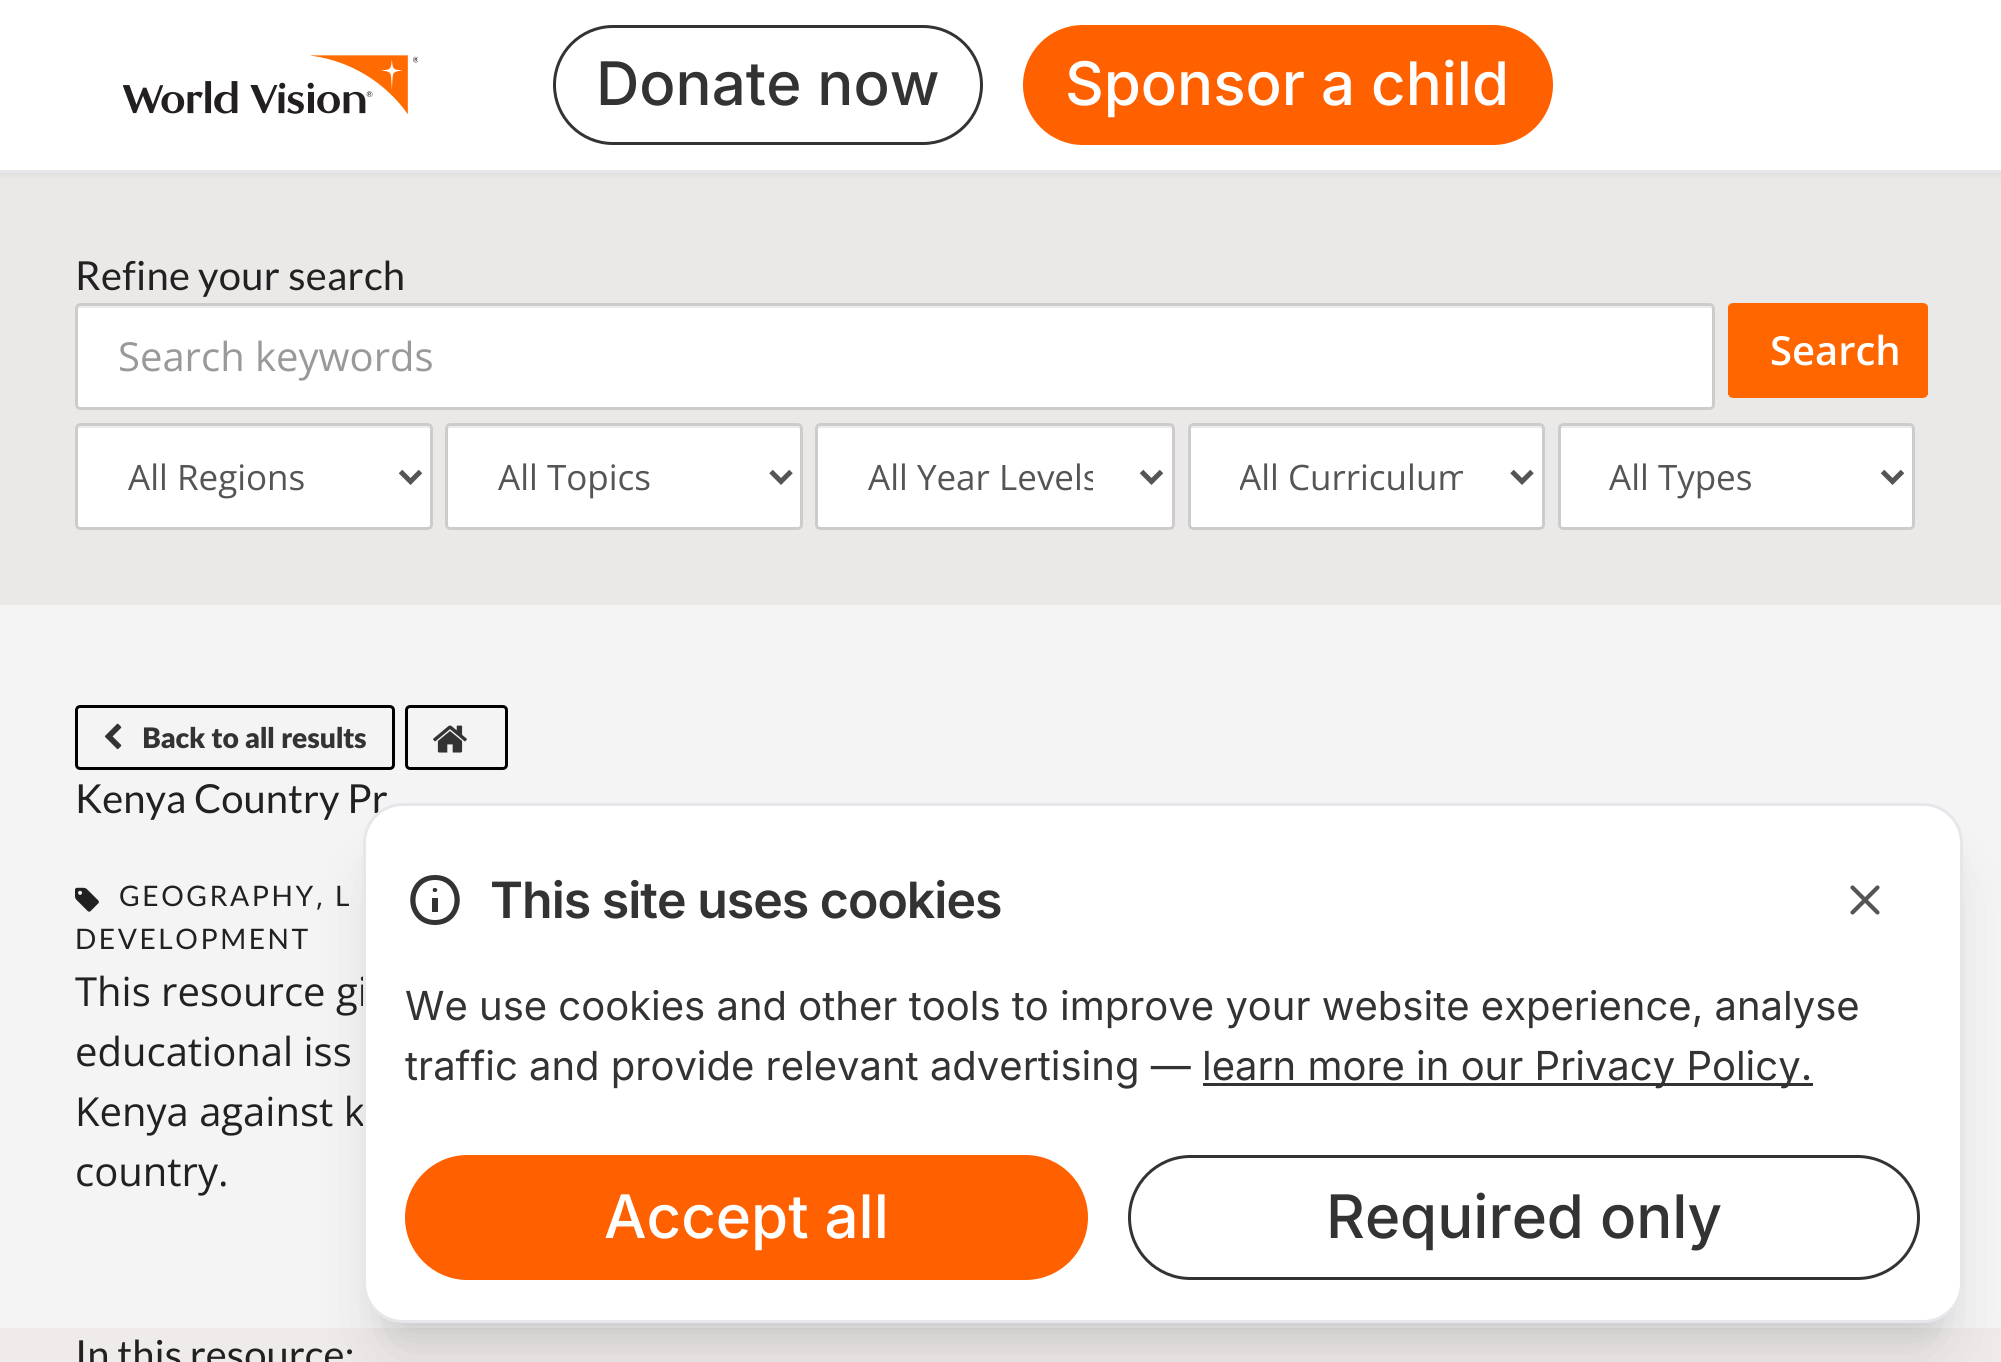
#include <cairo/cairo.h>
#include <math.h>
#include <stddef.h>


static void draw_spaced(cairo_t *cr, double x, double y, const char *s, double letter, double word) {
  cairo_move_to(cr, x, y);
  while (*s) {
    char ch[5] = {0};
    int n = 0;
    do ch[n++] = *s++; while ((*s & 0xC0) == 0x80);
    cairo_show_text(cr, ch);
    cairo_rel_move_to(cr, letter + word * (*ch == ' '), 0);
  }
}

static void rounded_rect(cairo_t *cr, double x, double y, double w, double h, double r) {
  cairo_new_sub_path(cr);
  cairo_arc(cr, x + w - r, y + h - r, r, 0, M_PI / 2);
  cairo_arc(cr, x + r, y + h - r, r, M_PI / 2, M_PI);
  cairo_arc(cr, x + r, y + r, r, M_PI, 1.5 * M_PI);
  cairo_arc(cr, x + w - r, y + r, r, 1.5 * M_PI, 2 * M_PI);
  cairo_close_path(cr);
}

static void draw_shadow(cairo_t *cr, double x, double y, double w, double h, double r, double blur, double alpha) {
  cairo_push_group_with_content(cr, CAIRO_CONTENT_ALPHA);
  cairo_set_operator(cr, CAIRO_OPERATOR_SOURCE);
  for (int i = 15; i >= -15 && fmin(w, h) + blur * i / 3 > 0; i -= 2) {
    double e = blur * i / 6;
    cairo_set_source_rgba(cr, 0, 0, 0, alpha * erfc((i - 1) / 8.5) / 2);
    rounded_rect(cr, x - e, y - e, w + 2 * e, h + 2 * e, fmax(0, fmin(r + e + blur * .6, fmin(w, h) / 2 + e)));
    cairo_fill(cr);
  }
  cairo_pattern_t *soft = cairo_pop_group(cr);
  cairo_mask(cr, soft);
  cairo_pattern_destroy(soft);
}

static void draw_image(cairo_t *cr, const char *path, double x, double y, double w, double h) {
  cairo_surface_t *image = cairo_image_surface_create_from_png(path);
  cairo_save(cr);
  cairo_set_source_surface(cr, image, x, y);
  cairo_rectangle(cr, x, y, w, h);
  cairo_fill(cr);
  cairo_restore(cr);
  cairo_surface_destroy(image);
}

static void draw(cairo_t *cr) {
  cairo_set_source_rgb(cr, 244 / 255.0, 244 / 255.0, 244 / 255.0);
  cairo_paint(cr);
  cairo_set_source_rgb(cr, 235 / 255.0, 233 / 255.0, 231 / 255.0);
  cairo_rectangle(cr, 0, 173, 2001, 432);
  cairo_fill(cr);
  cairo_set_source_rgb(cr, 0, 0, 0);
  draw_shadow(cr, 0, 3, 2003, 172, 0, 2.5, 0.05);
  cairo_set_source_rgb(cr, 1, 1, 1);
  cairo_rectangle(cr, 0, 0, 2001, 170);
  cairo_fill(cr);
  cairo_set_source_rgb(cr, 229 / 255.0, 231 / 255.0, 235 / 255.0);
  cairo_rectangle(cr, 0, 170, 2001, 3);
  cairo_fill(cr);
  draw_image(cr, "images/1.png", 123, 55, 295, 59);
  rounded_rect(cr, 554.5, 26.5, 427, 117, 58.5);
  cairo_set_source_rgb(cr, 51 / 255.0, 51 / 255.0, 51 / 255.0);
  cairo_set_line_width(cr, 3);
  cairo_stroke(cr);
  cairo_set_source_rgb(cr, 1, 96 / 255.0, 0);
  rounded_rect(cr, 1024.5, 26.5, 527, 117, 58.5);
  cairo_fill_preserve(cr);
  cairo_stroke(cr);
  cairo_set_source_rgb(cr, 1, 1, 1);
  rounded_rect(cr, 75, 303, 1640, 107, 5);
  cairo_fill(cr);
  cairo_set_source_rgb(cr, 236 / 255.0, 236 / 255.0, 236 / 255.0);
  cairo_new_path(cr);
  cairo_move_to(cr, 80, 308);
  cairo_line_to(cr, 1710, 308);
  cairo_curve_to(cr, 1711, 308, 1712, 309, 1712, 310);
  cairo_line_to(cr, 1712, 408);
  cairo_line_to(cr, 1713, 406);
  cairo_line_to(cr, 1713, 389);
  cairo_curve_to(cr, 1713, 381, 1714, 308, 1713, 306);
  cairo_line_to(cr, 1710, 305);
  cairo_line_to(cr, 80, 305);
  cairo_line_to(cr, 78, 306);
  cairo_line_to(cr, 78, 310);
  cairo_curve_to(cr, 78, 309, 79, 308, 80, 308);
  cairo_close_path(cr);
  cairo_fill(cr);
  rounded_rect(cr, 76.5, 304.5, 1637, 104, 3.5);
  cairo_set_source_rgb(cr, 204 / 255.0, 204 / 255.0, 204 / 255.0);
  cairo_stroke(cr);
  cairo_save(cr);
  rounded_rect(cr, 1728, 303, 200, 95, 5);
  cairo_clip(cr);
  cairo_set_source_rgb(cr, 1, 102 / 255.0, 0);
  cairo_rectangle(cr, 1728, 305, 200, 90);
  cairo_fill(cr);
  cairo_restore(cr);
  rounded_rect(cr, 1729.5, 304.5, 197, 92, 3.5);
  cairo_set_source_rgb(cr, 1, 102 / 255.0, 0);
  cairo_stroke(cr);
  cairo_set_source_rgb(cr, 1, 1, 1);
  rounded_rect(cr, 75, 423, 358, 107, 5);
  cairo_fill(cr);
  cairo_set_source_rgb(cr, 236 / 255.0, 236 / 255.0, 236 / 255.0);
  cairo_new_path(cr);
  cairo_move_to(cr, 80, 428);
  cairo_line_to(cr, 428, 428);
  cairo_curve_to(cr, 429, 428, 430, 429, 430, 430);
  cairo_curve_to(cr, 430, 428, 430, 425, 428, 425);
  cairo_line_to(cr, 80, 425);
  cairo_curve_to(cr, 78, 425, 78, 428, 78, 430);
  cairo_curve_to(cr, 78, 429, 79, 428, 80, 428);
  cairo_close_path(cr);
  cairo_fill(cr);
  rounded_rect(cr, 76.5, 424.5, 355, 104, 3.5);
  cairo_set_source_rgb(cr, 204 / 255.0, 204 / 255.0, 204 / 255.0);
  cairo_stroke(cr);
  cairo_new_path(cr);
  cairo_move_to(cr, 400.5, 471.5);
  cairo_line_to(cr, 410.5, 481.5);
  cairo_line_to(cr, 420.5, 471.5);
  cairo_set_source_rgb(cr, 85 / 255.0, 85 / 255.0, 85 / 255.0);
  cairo_set_line_width(cr, 5);
  cairo_stroke(cr);
  cairo_set_source_rgb(cr, 1, 1, 1);
  rounded_rect(cr, 445, 423, 358, 107, 5);
  cairo_fill(cr);
  cairo_set_source_rgb(cr, 236 / 255.0, 236 / 255.0, 236 / 255.0);
  cairo_new_path(cr);
  cairo_move_to(cr, 450, 428);
  cairo_line_to(cr, 798, 428);
  cairo_curve_to(cr, 799, 428, 800, 429, 800, 430);
  cairo_curve_to(cr, 800, 428, 800, 425, 798, 425);
  cairo_line_to(cr, 450, 425);
  cairo_curve_to(cr, 448, 425, 448, 428, 448, 430);
  cairo_curve_to(cr, 448, 429, 449, 428, 450, 428);
  cairo_close_path(cr);
  cairo_fill(cr);
  rounded_rect(cr, 446.5, 424.5, 355, 104, 3.5);
  cairo_set_source_rgb(cr, 204 / 255.0, 204 / 255.0, 204 / 255.0);
  cairo_set_line_width(cr, 3);
  cairo_stroke(cr);
  cairo_new_path(cr);
  cairo_move_to(cr, 771, 471.5);
  cairo_line_to(cr, 781, 481.5);
  cairo_line_to(cr, 791, 471.5);
  cairo_set_source_rgb(cr, 85 / 255.0, 85 / 255.0, 85 / 255.0);
  cairo_set_line_width(cr, 5);
  cairo_stroke(cr);
  cairo_set_source_rgb(cr, 1, 1, 1);
  rounded_rect(cr, 815, 423, 360, 107, 5);
  cairo_fill(cr);
  cairo_set_source_rgb(cr, 236 / 255.0, 236 / 255.0, 236 / 255.0);
  cairo_new_path(cr);
  cairo_move_to(cr, 820, 428);
  cairo_line_to(cr, 1170, 428);
  cairo_curve_to(cr, 1171, 428, 1172, 429, 1172, 430);
  cairo_line_to(cr, 1172, 528);
  cairo_curve_to(cr, 1173, 527, 1173, 526, 1173, 526);
  cairo_line_to(cr, 1173, 428);
  cairo_curve_to(cr, 1173, 426, 1172, 425, 1170, 425);
  cairo_line_to(cr, 820, 425);
  cairo_curve_to(cr, 819, 425, 818, 426, 818, 428);
  cairo_line_to(cr, 818, 430);
  cairo_curve_to(cr, 818, 429, 819, 428, 820, 428);
  cairo_close_path(cr);
  cairo_fill(cr);
  rounded_rect(cr, 816.5, 424.5, 357, 104, 3.5);
  cairo_set_source_rgb(cr, 204 / 255.0, 204 / 255.0, 204 / 255.0);
  cairo_set_line_width(cr, 3);
  cairo_stroke(cr);
  cairo_new_path(cr);
  cairo_move_to(cr, 1141.5, 471.5);
  cairo_line_to(cr, 1151.5, 481.5);
  cairo_line_to(cr, 1161.5, 471.5);
  cairo_set_source_rgb(cr, 85 / 255.0, 85 / 255.0, 85 / 255.0);
  cairo_set_line_width(cr, 5);
  cairo_stroke(cr);
  cairo_set_source_rgb(cr, 1, 1, 1);
  rounded_rect(cr, 1188, 423, 357, 107, 5);
  cairo_fill(cr);
  cairo_set_source_rgb(cr, 236 / 255.0, 236 / 255.0, 236 / 255.0);
  cairo_new_path(cr);
  cairo_move_to(cr, 1192, 428);
  cairo_line_to(cr, 1540, 428);
  cairo_curve_to(cr, 1541, 428, 1542, 429, 1542, 430);
  cairo_line_to(cr, 1542, 528);
  cairo_curve_to(cr, 1543, 527, 1543, 526, 1543, 526);
  cairo_line_to(cr, 1543, 428);
  cairo_curve_to(cr, 1543, 426, 1542, 425, 1540, 425);
  cairo_line_to(cr, 1192, 425);
  cairo_curve_to(cr, 1191, 425, 1190, 426, 1190, 428);
  cairo_line_to(cr, 1190, 430);
  cairo_curve_to(cr, 1190, 429, 1191, 428, 1192, 428);
  cairo_close_path(cr);
  cairo_fill(cr);
  rounded_rect(cr, 1189.5, 424.5, 354, 104, 3.5);
  cairo_set_source_rgb(cr, 204 / 255.0, 204 / 255.0, 204 / 255.0);
  cairo_set_line_width(cr, 3);
  cairo_stroke(cr);
  cairo_new_path(cr);
  cairo_move_to(cr, 1512, 471.5);
  cairo_line_to(cr, 1522, 481.5);
  cairo_line_to(cr, 1532, 471.5);
  cairo_set_source_rgb(cr, 85 / 255.0, 85 / 255.0, 85 / 255.0);
  cairo_set_line_width(cr, 5);
  cairo_stroke(cr);
  cairo_set_source_rgb(cr, 1, 1, 1);
  rounded_rect(cr, 1558, 423, 357, 107, 5);
  cairo_fill(cr);
  cairo_set_source_rgb(cr, 236 / 255.0, 236 / 255.0, 236 / 255.0);
  cairo_new_path(cr);
  cairo_move_to(cr, 1562, 428);
  cairo_line_to(cr, 1910, 428);
  cairo_curve_to(cr, 1911, 428, 1912, 429, 1912, 430);
  cairo_line_to(cr, 1912, 528);
  cairo_curve_to(cr, 1913, 527, 1913, 526, 1913, 526);
  cairo_line_to(cr, 1913, 428);
  cairo_curve_to(cr, 1913, 426, 1912, 425, 1910, 425);
  cairo_line_to(cr, 1562, 425);
  cairo_curve_to(cr, 1561, 425, 1560, 426, 1560, 428);
  cairo_line_to(cr, 1560, 430);
  cairo_curve_to(cr, 1560, 429, 1561, 428, 1562, 428);
  cairo_close_path(cr);
  cairo_fill(cr);
  rounded_rect(cr, 1559.5, 424.5, 354, 104, 3.5);
  cairo_set_source_rgb(cr, 204 / 255.0, 204 / 255.0, 204 / 255.0);
  cairo_set_line_width(cr, 3);
  cairo_stroke(cr);
  cairo_new_path(cr);
  cairo_move_to(cr, 1882.5, 471.5);
  cairo_line_to(cr, 1892.5, 481.5);
  cairo_line_to(cr, 1902.5, 471.5);
  cairo_set_source_rgb(cr, 85 / 255.0, 85 / 255.0, 85 / 255.0);
  cairo_set_line_width(cr, 5);
  cairo_stroke(cr);
  rounded_rect(cr, 76.5, 706.5, 317, 62, 3.5);
  cairo_set_source_rgb(cr, 0, 0, 0);
  cairo_set_line_width(cr, 3);
  cairo_stroke(cr);
  draw_image(cr, "images/2.png", 104, 723, 18, 27);
  rounded_rect(cr, 406.5, 706.5, 100, 62, 3.5);
  cairo_stroke(cr);
  draw_image(cr, "images/3.png", 433, 725, 34, 28);
  draw_image(cr, "images/4.png", 75, 887, 24, 25);
  cairo_set_source_rgb(cr, 238 / 255.0, 235 / 255.0, 234 / 255.0);
  cairo_rectangle(cr, 0, 1328, 2001, 34);
  cairo_fill(cr);
  cairo_set_source_rgb(cr, 0, 0, 0);
  draw_shadow(cr, 378, 838, 1570, 490, 25, 12.5, 0.1);
  draw_shadow(cr, 375, 865, 1575, 495, 28, 31, 0.1);
  cairo_select_font_face(cr, "Inter Medium", CAIRO_FONT_SLANT_NORMAL, CAIRO_FONT_WEIGHT_NORMAL);
  cairo_set_font_size(cr, 60);
  cairo_set_source_rgb(cr, 51 / 255.0, 51 / 255.0, 51 / 255.0);
  cairo_move_to(cr, 596, 105);
  cairo_show_text(cr, "Donate now");
  cairo_set_source_rgb(cr, 1, 1, 1);
  cairo_move_to(cr, 1065, 105);
  cairo_show_text(cr, "Sponsor a child");
  cairo_select_font_face(cr, "Lato", CAIRO_FONT_SLANT_NORMAL, CAIRO_FONT_WEIGHT_NORMAL);
  cairo_set_font_size(cr, 40);
  cairo_set_source_rgb(cr, 33 / 255.0, 33 / 255.0, 33 / 255.0);
  draw_spaced(cr, 75, 290, "Refine your search", 0.25, 0);
  cairo_select_font_face(cr, "Open Sans", CAIRO_FONT_SLANT_NORMAL, CAIRO_FONT_WEIGHT_NORMAL);
  cairo_set_source_rgb(cr, 153 / 255.0, 153 / 255.0, 153 / 255.0);
  cairo_move_to(cr, 118, 371);
  cairo_show_text(cr, "Search keywords");
  cairo_select_font_face(cr, "Open Sans SemiBold", CAIRO_FONT_SLANT_NORMAL, CAIRO_FONT_WEIGHT_NORMAL);
  cairo_set_source_rgb(cr, 1, 1, 1);
  cairo_move_to(cr, 1770, 365);
  cairo_show_text(cr, "Search");
  cairo_select_font_face(cr, "Open Sans", CAIRO_FONT_SLANT_NORMAL, CAIRO_FONT_WEIGHT_NORMAL);
  cairo_set_font_size(cr, 35);
  cairo_set_source_rgb(cr, 85 / 255.0, 85 / 255.0, 85 / 255.0);
  cairo_move_to(cr, 128, 490);
  cairo_show_text(cr, "All Regions");
  cairo_move_to(cr, 498, 490);
  cairo_show_text(cr, "All Topics");
  cairo_save(cr);
  cairo_rectangle(cr, 868, 450, 225, 53);
  cairo_clip(cr);
  cairo_move_to(cr, 868, 490);
  cairo_show_text(cr, "All Year Levels");
  cairo_restore(cr);
  cairo_save(cr);
  cairo_rectangle(cr, 1240, 450, 223, 53);
  cairo_clip(cr);
  cairo_move_to(cr, 1239, 490);
  cairo_show_text(cr, "All Curriculum");
  cairo_restore(cr);
  cairo_move_to(cr, 1609, 490);
  cairo_show_text(cr, "All Types");
  cairo_select_font_face(cr, "Lato Black", CAIRO_FONT_SLANT_NORMAL, CAIRO_FONT_WEIGHT_NORMAL);
  cairo_set_font_size(cr, 28.25);
  cairo_set_source_rgb(cr, 51 / 255.0, 51 / 255.0, 51 / 255.0);
  cairo_move_to(cr, 142, 748);
  cairo_show_text(cr, "Back to all results");
  cairo_select_font_face(cr, "Lato", CAIRO_FONT_SLANT_NORMAL, CAIRO_FONT_WEIGHT_NORMAL);
  cairo_set_font_size(cr, 40);
  cairo_set_source_rgb(cr, 33 / 255.0, 33 / 255.0, 33 / 255.0);
  cairo_move_to(cr, 75, 813);
  cairo_show_text(cr, "Kenya Country Pr");
  cairo_set_font_size(cr, 28.25);
  draw_spaced(cr, 119, 906, "GEOGRAPHY", 2.5, 0);
  cairo_select_font_face(cr, "Open Sans", CAIRO_FONT_SLANT_NORMAL, CAIRO_FONT_WEIGHT_NORMAL);
  draw_spaced(cr, 316, 906, ",", 2.5, 0);
  cairo_select_font_face(cr, "Lato", CAIRO_FONT_SLANT_NORMAL, CAIRO_FONT_WEIGHT_NORMAL);
  draw_spaced(cr, 335, 906, "L", 2.5, 0);
  draw_spaced(cr, 75, 949, "DEVELOPMENT", 2.5, 0);
  cairo_select_font_face(cr, "Open Sans", CAIRO_FONT_SLANT_NORMAL, CAIRO_FONT_WEIGHT_NORMAL);
  cairo_set_font_size(cr, 40);
  cairo_move_to(cr, 75, 1006);
  cairo_show_text(cr, "This resource gi");
  cairo_move_to(cr, 75, 1066);
  cairo_show_text(cr, "educational iss");
  cairo_move_to(cr, 75, 1126);
  cairo_show_text(cr, "Kenya against k");
  cairo_move_to(cr, 75, 1186);
  cairo_show_text(cr, "country.");
  cairo_select_font_face(cr, "Lato", CAIRO_FONT_SLANT_NORMAL, CAIRO_FONT_WEIGHT_NORMAL);
  cairo_move_to(cr, 75, 1369);
  cairo_show_text(cr, "In this resource:");
  cairo_set_source_rgb(cr, 1, 1, 1);
  rounded_rect(cr, 364.5, 804.5, 1597, 517, 38.5);
  cairo_fill_preserve(cr);
  cairo_set_source_rgb(cr, 229 / 255.0, 231 / 255.0, 235 / 255.0);
  cairo_stroke(cr);
  cairo_set_source_rgb(cr, 51 / 255.0, 51 / 255.0, 51 / 255.0);
  cairo_new_path(cr);
  cairo_move_to(cr, 432, 912);
  cairo_line_to(cr, 438, 912);
  cairo_line_to(cr, 438, 898);
  cairo_line_to(cr, 432, 898);
  cairo_close_path(cr);
  cairo_move_to(cr, 435, 892);
  cairo_curve_to(cr, 438, 892, 438, 888, 435, 888);
  cairo_curve_to(cr, 432, 887, 432, 893, 435, 892);
  cairo_move_to(cr, 435, 925);
  cairo_curve_to(cr, 402, 925, 402, 875, 435, 875);
  cairo_curve_to(cr, 468, 875, 468, 925, 435, 925);
  cairo_move_to(cr, 435, 920);
  cairo_curve_to(cr, 461, 920, 461, 880, 435, 880);
  cairo_curve_to(cr, 409, 880, 409, 920, 435, 920);
  cairo_fill(cr);
  cairo_select_font_face(cr, "Inter SemiBold", CAIRO_FONT_SLANT_NORMAL, CAIRO_FONT_WEIGHT_NORMAL);
  cairo_set_font_size(cr, 50);
  draw_spaced(cr, 490, 918, "This site uses cookies", -1, 0);
  draw_image(cr, "images/5.png", 1850, 885, 30, 30);
  cairo_select_font_face(cr, "Inter", CAIRO_FONT_SLANT_NORMAL, CAIRO_FONT_WEIGHT_NORMAL);
  cairo_set_font_size(cr, 40);
  cairo_move_to(cr, 405, 1020);
  cairo_show_text(cr, "We use cookies and other tools to improve your website experience, analyse");
  cairo_move_to(cr, 405, 1080);
  cairo_show_text(cr, "traffic and provide relevant advertising —");
  cairo_rectangle(cr, 1203, 1083, 610, 3);
  cairo_fill(cr);
  cairo_move_to(cr, 1202, 1080);
  cairo_show_text(cr, "learn more in our Privacy Policy.");
  cairo_set_source_rgb(cr, 1, 96 / 255.0, 0);
  rounded_rect(cr, 406.5, 1156.5, 680, 122, 61);
  cairo_fill_preserve(cr);
  cairo_stroke(cr);
  cairo_select_font_face(cr, "Inter Medium", CAIRO_FONT_SLANT_NORMAL, CAIRO_FONT_WEIGHT_NORMAL);
  cairo_set_font_size(cr, 60);
  cairo_set_source_rgb(cr, 1, 1, 1);
  cairo_move_to(cr, 604, 1238);
  cairo_show_text(cr, "Accept all");
  rounded_rect(cr, 1129.5, 1156.5, 789, 122, 61);
  cairo_set_source_rgb(cr, 51 / 255.0, 51 / 255.0, 51 / 255.0);
  cairo_stroke(cr);
  cairo_move_to(cr, 1326, 1238);
  cairo_show_text(cr, "Required only");
}

int main(void) {
  cairo_surface_t *surface = cairo_image_surface_create(CAIRO_FORMAT_RGB24, 2001, 1362);
  cairo_t *cr = cairo_create(surface);
  cairo_font_options_t *options = cairo_font_options_create();
  cairo_font_options_set_hint_metrics(options, CAIRO_HINT_METRICS_OFF);
  cairo_font_options_set_hint_style(options, CAIRO_HINT_STYLE_NONE);
  cairo_set_font_options(cr, options);
  cairo_set_miter_limit(cr, 4);
  draw(cr);
  cairo_surface_write_to_png(surface, "out.png");
  cairo_font_options_destroy(options);
  cairo_destroy(cr);
  cairo_surface_destroy(surface);
  return 0;
}
